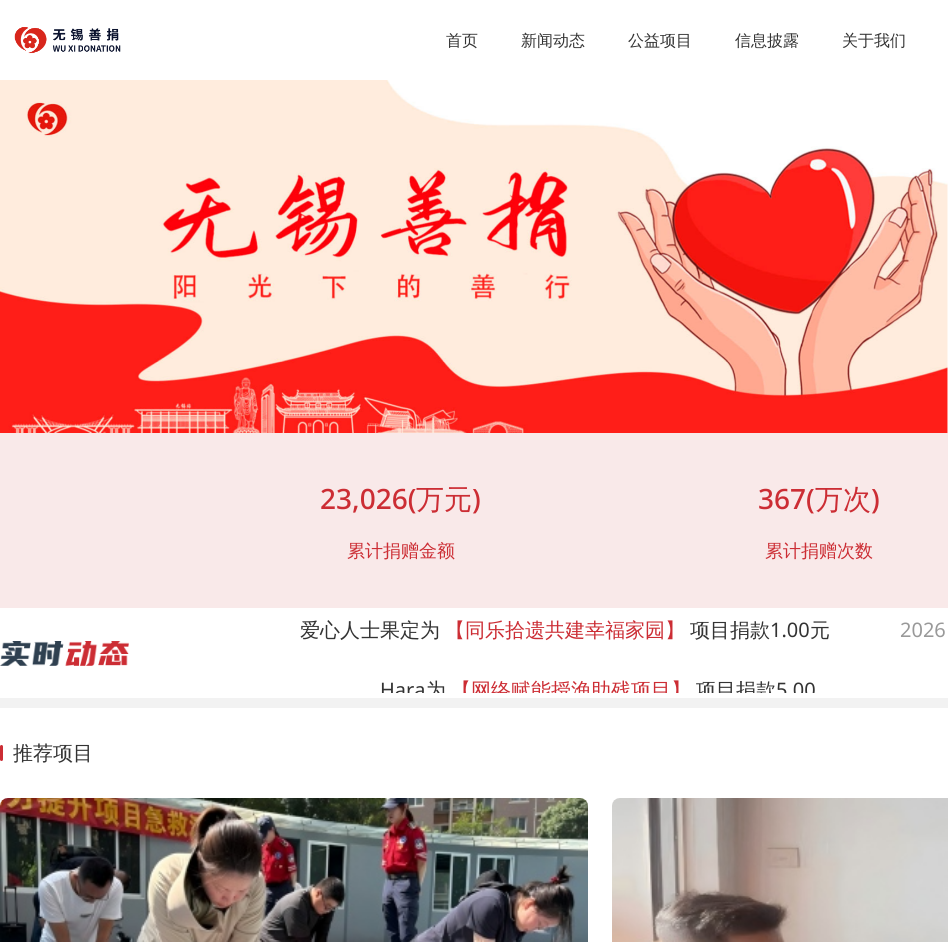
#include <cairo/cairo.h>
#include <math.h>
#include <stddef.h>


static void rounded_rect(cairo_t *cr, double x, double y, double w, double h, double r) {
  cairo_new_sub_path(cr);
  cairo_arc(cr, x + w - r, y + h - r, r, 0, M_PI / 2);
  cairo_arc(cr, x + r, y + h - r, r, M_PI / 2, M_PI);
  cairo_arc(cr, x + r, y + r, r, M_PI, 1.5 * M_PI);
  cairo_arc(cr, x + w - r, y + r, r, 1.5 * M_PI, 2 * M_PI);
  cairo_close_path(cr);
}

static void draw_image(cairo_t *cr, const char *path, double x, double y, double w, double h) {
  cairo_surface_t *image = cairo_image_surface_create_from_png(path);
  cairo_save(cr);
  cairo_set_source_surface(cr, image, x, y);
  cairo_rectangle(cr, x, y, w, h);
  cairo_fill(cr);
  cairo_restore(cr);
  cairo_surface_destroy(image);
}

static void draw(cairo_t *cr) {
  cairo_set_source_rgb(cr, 1, 1, 1);
  cairo_paint(cr);
  draw_image(cr, "images/1.png", 14, 27, 107, 27);
  draw_image(cr, "images/2.png", 0, 80, 948, 353);
  cairo_set_source_rgb(cr, 249 / 255.0, 233 / 255.0, 233 / 255.0);
  cairo_rectangle(cr, 0, 433, 948, 175);
  cairo_fill(cr);
  draw_image(cr, "images/3.png", 0, 641, 129, 25);
  cairo_set_source_rgb(cr, 242 / 255.0, 242 / 255.0, 242 / 255.0);
  cairo_rectangle(cr, 0, 698, 948, 10);
  cairo_fill(cr);
  cairo_set_source_rgb(cr, 204 / 255.0, 45 / 255.0, 52 / 255.0);
  rounded_rect(cr, 0, 745, 3, 16, 1.5);
  cairo_fill(cr);
  draw_image(cr, "images/4.png", 0, 798, 588, 144);
  draw_image(cr, "images/5.png", 612, 798, 336, 144);
  cairo_select_font_face(cr, "WenQuanYi Zen Hei Medium", CAIRO_FONT_SLANT_NORMAL, CAIRO_FONT_WEIGHT_NORMAL);
  cairo_set_font_size(cr, 16);
  cairo_set_source_rgb(cr, 51 / 255.0, 51 / 255.0, 51 / 255.0);
  cairo_move_to(cr, 446, 46);
  cairo_show_text(cr, "首页");
  cairo_move_to(cr, 521, 46);
  cairo_show_text(cr, "新闻动态");
  cairo_move_to(cr, 628, 46);
  cairo_show_text(cr, "公益项目");
  cairo_move_to(cr, 735, 46);
  cairo_show_text(cr, "信息披露");
  cairo_move_to(cr, 842, 46);
  cairo_show_text(cr, "关于我们");
  cairo_select_font_face(cr, "Noto Sans Medium", CAIRO_FONT_SLANT_NORMAL, CAIRO_FONT_WEIGHT_NORMAL);
  cairo_set_font_size(cr, 28);
  cairo_set_source_rgb(cr, 204 / 255.0, 45 / 255.0, 52 / 255.0);
  cairo_move_to(cr, 320, 509);
  cairo_show_text(cr, "23,026(");
  cairo_select_font_face(cr, "WenQuanYi Zen Hei Medium", CAIRO_FONT_SLANT_NORMAL, CAIRO_FONT_WEIGHT_NORMAL);
  cairo_move_to(cr, 416, 509);
  cairo_show_text(cr, "万元");
  cairo_select_font_face(cr, "Noto Sans Medium", CAIRO_FONT_SLANT_NORMAL, CAIRO_FONT_WEIGHT_NORMAL);
  cairo_move_to(cr, 472, 509);
  cairo_show_text(cr, ")");
  cairo_select_font_face(cr, "WenQuanYi Zen Hei Medium", CAIRO_FONT_SLANT_NORMAL, CAIRO_FONT_WEIGHT_NORMAL);
  cairo_set_font_size(cr, 18);
  cairo_move_to(cr, 347, 557);
  cairo_show_text(cr, "累计捐赠金额");
  cairo_select_font_face(cr, "Noto Sans Medium", CAIRO_FONT_SLANT_NORMAL, CAIRO_FONT_WEIGHT_NORMAL);
  cairo_set_font_size(cr, 28);
  cairo_move_to(cr, 758, 509);
  cairo_show_text(cr, "367(");
  cairo_select_font_face(cr, "WenQuanYi Zen Hei Medium", CAIRO_FONT_SLANT_NORMAL, CAIRO_FONT_WEIGHT_NORMAL);
  cairo_move_to(cr, 815, 509);
  cairo_show_text(cr, "万次");
  cairo_select_font_face(cr, "Noto Sans Medium", CAIRO_FONT_SLANT_NORMAL, CAIRO_FONT_WEIGHT_NORMAL);
  cairo_move_to(cr, 871, 509);
  cairo_show_text(cr, ")");
  cairo_select_font_face(cr, "WenQuanYi Zen Hei Medium", CAIRO_FONT_SLANT_NORMAL, CAIRO_FONT_WEIGHT_NORMAL);
  cairo_set_font_size(cr, 18);
  cairo_move_to(cr, 765, 557);
  cairo_show_text(cr, "累计捐赠次数");
  cairo_set_font_size(cr, 20);
  cairo_set_source_rgb(cr, 51 / 255.0, 51 / 255.0, 51 / 255.0);
  cairo_move_to(cr, 300, 637);
  cairo_show_text(cr, "爱心人士果定为");
  cairo_set_source_rgb(cr, 204 / 255.0, 45 / 255.0, 52 / 255.0);
  cairo_move_to(cr, 445, 637);
  cairo_show_text(cr, "【同乐拾遗共建幸福家园】");
  cairo_set_source_rgb(cr, 51 / 255.0, 51 / 255.0, 51 / 255.0);
  cairo_move_to(cr, 690, 637);
  cairo_show_text(cr, "项目捐款");
  cairo_select_font_face(cr, "Noto Sans", CAIRO_FONT_SLANT_NORMAL, CAIRO_FONT_WEIGHT_NORMAL);
  cairo_move_to(cr, 770, 637);
  cairo_show_text(cr, "1.00");
  cairo_select_font_face(cr, "WenQuanYi Zen Hei Medium", CAIRO_FONT_SLANT_NORMAL, CAIRO_FONT_WEIGHT_NORMAL);
  cairo_move_to(cr, 810, 637);
  cairo_show_text(cr, "元");
  cairo_select_font_face(cr, "Noto Sans", CAIRO_FONT_SLANT_NORMAL, CAIRO_FONT_WEIGHT_NORMAL);
  cairo_set_source_rgb(cr, 153 / 255.0, 153 / 255.0, 153 / 255.0);
  cairo_move_to(cr, 900, 637);
  cairo_show_text(cr, "2026");
  cairo_save(cr);
  cairo_rectangle(cr, 300, 675, 600, 18);
  cairo_clip(cr);
  cairo_set_source_rgb(cr, 51 / 255.0, 51 / 255.0, 51 / 255.0);
  cairo_move_to(cr, 380, 697);
  cairo_show_text(cr, "Hara");
  cairo_select_font_face(cr, "WenQuanYi Zen Hei Medium", CAIRO_FONT_SLANT_NORMAL, CAIRO_FONT_WEIGHT_NORMAL);
  cairo_move_to(cr, 426, 697);
  cairo_show_text(cr, "为");
  cairo_set_source_rgb(cr, 204 / 255.0, 45 / 255.0, 52 / 255.0);
  cairo_move_to(cr, 451, 697);
  cairo_show_text(cr, "【网络赋能授渔助残项目】");
  cairo_set_source_rgb(cr, 51 / 255.0, 51 / 255.0, 51 / 255.0);
  cairo_move_to(cr, 696, 697);
  cairo_show_text(cr, "项目捐款");
  cairo_select_font_face(cr, "Noto Sans", CAIRO_FONT_SLANT_NORMAL, CAIRO_FONT_WEIGHT_NORMAL);
  cairo_move_to(cr, 776, 697);
  cairo_show_text(cr, "5.00");
  cairo_restore(cr);
  cairo_select_font_face(cr, "WenQuanYi Zen Hei Medium", CAIRO_FONT_SLANT_NORMAL, CAIRO_FONT_WEIGHT_NORMAL);
  cairo_set_source_rgb(cr, 51 / 255.0, 51 / 255.0, 51 / 255.0);
  cairo_move_to(cr, 13, 760);
  cairo_show_text(cr, "推荐项目");
}

int main(void) {
  cairo_surface_t *surface = cairo_image_surface_create(CAIRO_FORMAT_RGB24, 948, 942);
  cairo_t *cr = cairo_create(surface);
  cairo_font_options_t *options = cairo_font_options_create();
  cairo_font_options_set_hint_metrics(options, CAIRO_HINT_METRICS_OFF);
  cairo_font_options_set_hint_style(options, CAIRO_HINT_STYLE_NONE);
  cairo_set_font_options(cr, options);
  cairo_set_miter_limit(cr, 4);
  draw(cr);
  cairo_surface_write_to_png(surface, "out.png");
  cairo_font_options_destroy(options);
  cairo_destroy(cr);
  cairo_surface_destroy(surface);
  return 0;
}
